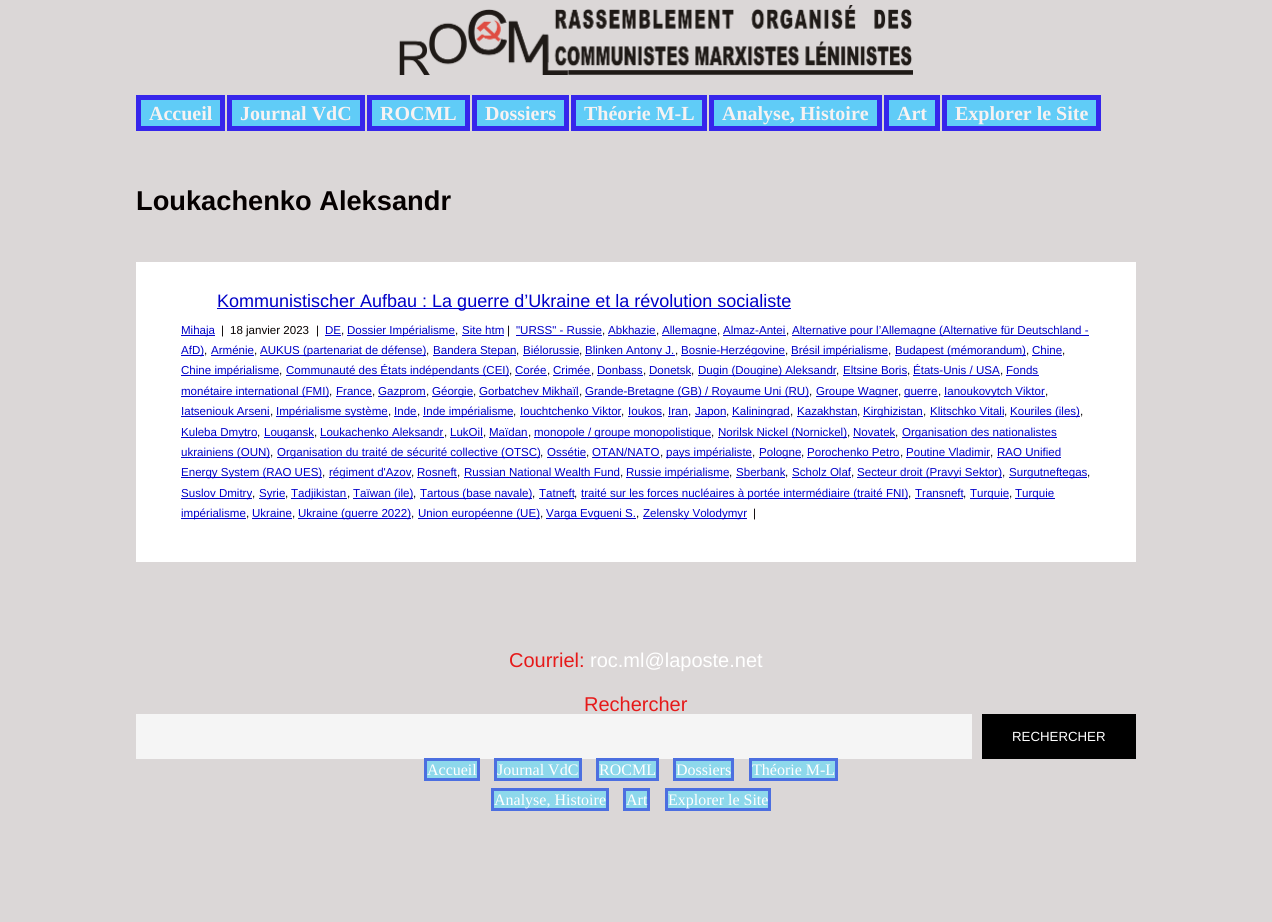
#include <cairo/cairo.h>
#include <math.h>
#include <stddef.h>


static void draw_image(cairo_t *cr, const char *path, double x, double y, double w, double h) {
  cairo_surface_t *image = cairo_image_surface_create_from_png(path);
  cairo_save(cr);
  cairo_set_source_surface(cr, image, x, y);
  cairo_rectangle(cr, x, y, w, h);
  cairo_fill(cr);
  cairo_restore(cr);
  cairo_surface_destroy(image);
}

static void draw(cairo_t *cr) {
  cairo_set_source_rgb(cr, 219 / 255.0, 215 / 255.0, 215 / 255.0);
  cairo_paint(cr);
  draw_image(cr, "images/1.png", 399, 5, 514, 70);
  cairo_set_source_rgb(cr, 96 / 255.0, 204 / 255.0, 247 / 255.0);
  cairo_rectangle(cr, 138.5, 97.5, 84, 31);
  cairo_fill_preserve(cr);
  cairo_set_source_rgb(cr, 54 / 255.0, 38 / 255.0, 235 / 255.0);
  cairo_set_line_width(cr, 5);
  cairo_stroke(cr);
  cairo_set_source_rgb(cr, 96 / 255.0, 204 / 255.0, 247 / 255.0);
  cairo_rectangle(cr, 229.5, 97.5, 133, 31);
  cairo_fill_preserve(cr);
  cairo_set_source_rgb(cr, 54 / 255.0, 38 / 255.0, 235 / 255.0);
  cairo_stroke(cr);
  cairo_set_source_rgb(cr, 96 / 255.0, 204 / 255.0, 247 / 255.0);
  cairo_rectangle(cr, 369.5, 97.5, 98, 31);
  cairo_fill_preserve(cr);
  cairo_set_source_rgb(cr, 54 / 255.0, 38 / 255.0, 235 / 255.0);
  cairo_stroke(cr);
  cairo_set_source_rgb(cr, 96 / 255.0, 204 / 255.0, 247 / 255.0);
  cairo_rectangle(cr, 474.5, 97.5, 92, 31);
  cairo_fill_preserve(cr);
  cairo_set_source_rgb(cr, 54 / 255.0, 38 / 255.0, 235 / 255.0);
  cairo_stroke(cr);
  cairo_set_source_rgb(cr, 96 / 255.0, 204 / 255.0, 247 / 255.0);
  cairo_rectangle(cr, 573.5, 97.5, 131, 31);
  cairo_fill_preserve(cr);
  cairo_set_source_rgb(cr, 54 / 255.0, 38 / 255.0, 235 / 255.0);
  cairo_stroke(cr);
  cairo_set_source_rgb(cr, 96 / 255.0, 204 / 255.0, 247 / 255.0);
  cairo_rectangle(cr, 711.5, 97.5, 168, 31);
  cairo_fill_preserve(cr);
  cairo_set_source_rgb(cr, 54 / 255.0, 38 / 255.0, 235 / 255.0);
  cairo_stroke(cr);
  cairo_set_source_rgb(cr, 96 / 255.0, 204 / 255.0, 247 / 255.0);
  cairo_rectangle(cr, 886.5, 97.5, 51, 31);
  cairo_fill_preserve(cr);
  cairo_set_source_rgb(cr, 54 / 255.0, 38 / 255.0, 235 / 255.0);
  cairo_stroke(cr);
  cairo_set_source_rgb(cr, 96 / 255.0, 204 / 255.0, 247 / 255.0);
  cairo_rectangle(cr, 944.5, 97.5, 154, 31);
  cairo_fill_preserve(cr);
  cairo_set_source_rgb(cr, 54 / 255.0, 38 / 255.0, 235 / 255.0);
  cairo_stroke(cr);
  cairo_set_source_rgb(cr, 1, 1, 1);
  cairo_rectangle(cr, 136, 262, 1000, 300);
  cairo_fill(cr);
  cairo_set_source_rgb(cr, 0, 0, 200 / 255.0);
  cairo_rectangle(cr, 217, 308, 574, 1);
  cairo_fill(cr);
  cairo_rectangle(cr, 181, 335, 34, 1);
  cairo_fill(cr);
  cairo_rectangle(cr, 325, 335, 16, 1);
  cairo_fill(cr);
  cairo_rectangle(cr, 347, 335, 108, 1);
  cairo_fill(cr);
  cairo_rectangle(cr, 462, 335, 42, 1);
  cairo_fill(cr);
  cairo_rectangle(cr, 516, 335, 86, 1);
  cairo_fill(cr);
  cairo_rectangle(cr, 608, 335, 48, 1);
  cairo_fill(cr);
  cairo_rectangle(cr, 662, 335, 55, 1);
  cairo_fill(cr);
  cairo_rectangle(cr, 723, 335, 63, 1);
  cairo_fill(cr);
  cairo_rectangle(cr, 792, 335, 297, 1);
  cairo_fill(cr);
  cairo_rectangle(cr, 181, 355, 23, 1);
  cairo_fill(cr);
  cairo_rectangle(cr, 211, 355, 43, 1);
  cairo_fill(cr);
  cairo_rectangle(cr, 260, 355, 166, 1);
  cairo_fill(cr);
  cairo_rectangle(cr, 433, 355, 83, 1);
  cairo_fill(cr);
  cairo_rectangle(cr, 523, 355, 56, 1);
  cairo_fill(cr);
  cairo_rectangle(cr, 585, 355, 90, 1);
  cairo_fill(cr);
  cairo_rectangle(cr, 681, 355, 104, 1);
  cairo_fill(cr);
  cairo_rectangle(cr, 791, 355, 97, 1);
  cairo_fill(cr);
  cairo_rectangle(cr, 895, 355, 131, 1);
  cairo_fill(cr);
  cairo_rectangle(cr, 1032, 355, 30, 1);
  cairo_fill(cr);
  cairo_rectangle(cr, 181, 375, 98, 1);
  cairo_fill(cr);
  cairo_rectangle(cr, 286, 375, 223, 1);
  cairo_fill(cr);
  cairo_rectangle(cr, 515, 375, 32, 1);
  cairo_fill(cr);
  cairo_rectangle(cr, 553, 375, 38, 1);
  cairo_fill(cr);
  cairo_rectangle(cr, 597, 375, 46, 1);
  cairo_fill(cr);
  cairo_rectangle(cr, 649, 375, 42, 1);
  cairo_fill(cr);
  cairo_rectangle(cr, 698, 375, 138, 1);
  cairo_fill(cr);
  cairo_rectangle(cr, 843, 375, 64, 1);
  cairo_fill(cr);
  cairo_rectangle(cr, 913, 375, 87, 1);
  cairo_fill(cr);
  cairo_rectangle(cr, 1006, 375, 33, 1);
  cairo_fill(cr);
  cairo_rectangle(cr, 181, 396, 148, 1);
  cairo_fill(cr);
  cairo_rectangle(cr, 336, 396, 36, 1);
  cairo_fill(cr);
  cairo_rectangle(cr, 378, 396, 48, 1);
  cairo_fill(cr);
  cairo_rectangle(cr, 432, 396, 41, 1);
  cairo_fill(cr);
  cairo_rectangle(cr, 479, 396, 100, 1);
  cairo_fill(cr);
  cairo_rectangle(cr, 585, 396, 224, 1);
  cairo_fill(cr);
  cairo_rectangle(cr, 816, 396, 82, 1);
  cairo_fill(cr);
  cairo_rectangle(cr, 904, 396, 34, 1);
  cairo_fill(cr);
  cairo_rectangle(cr, 944, 396, 101, 1);
  cairo_fill(cr);
  cairo_rectangle(cr, 181, 416, 89, 1);
  cairo_fill(cr);
  cairo_rectangle(cr, 276, 416, 112, 1);
  cairo_fill(cr);
  cairo_rectangle(cr, 394, 416, 23, 1);
  cairo_fill(cr);
  cairo_rectangle(cr, 423, 416, 90, 1);
  cairo_fill(cr);
  cairo_rectangle(cr, 520, 416, 101, 1);
  cairo_fill(cr);
  cairo_rectangle(cr, 628, 416, 34, 1);
  cairo_fill(cr);
  cairo_rectangle(cr, 668, 416, 20, 1);
  cairo_fill(cr);
  cairo_rectangle(cr, 695, 416, 31, 1);
  cairo_fill(cr);
  cairo_rectangle(cr, 732, 416, 58, 1);
  cairo_fill(cr);
  cairo_rectangle(cr, 797, 416, 60, 1);
  cairo_fill(cr);
  cairo_rectangle(cr, 863, 416, 60, 1);
  cairo_fill(cr);
  cairo_rectangle(cr, 930, 416, 74, 1);
  cairo_fill(cr);
  cairo_rectangle(cr, 1010, 416, 70, 1);
  cairo_fill(cr);
  cairo_rectangle(cr, 181, 437, 76, 1);
  cairo_fill(cr);
  cairo_rectangle(cr, 264, 437, 50, 1);
  cairo_fill(cr);
  cairo_rectangle(cr, 320, 437, 124, 1);
  cairo_fill(cr);
  cairo_rectangle(cr, 450, 437, 33, 1);
  cairo_fill(cr);
  cairo_rectangle(cr, 489, 437, 39, 1);
  cairo_fill(cr);
  cairo_rectangle(cr, 534, 437, 177, 1);
  cairo_fill(cr);
  cairo_rectangle(cr, 718, 437, 129, 1);
  cairo_fill(cr);
  cairo_rectangle(cr, 853, 437, 42, 1);
  cairo_fill(cr);
  cairo_rectangle(cr, 902, 437, 155, 1);
  cairo_fill(cr);
  cairo_rectangle(cr, 181, 457, 89, 1);
  cairo_fill(cr);
  cairo_rectangle(cr, 277, 457, 263, 1);
  cairo_fill(cr);
  cairo_rectangle(cr, 547, 457, 39, 1);
  cairo_fill(cr);
  cairo_rectangle(cr, 592, 457, 68, 1);
  cairo_fill(cr);
  cairo_rectangle(cr, 666, 457, 86, 1);
  cairo_fill(cr);
  cairo_rectangle(cr, 759, 457, 42, 1);
  cairo_fill(cr);
  cairo_rectangle(cr, 807, 457, 93, 1);
  cairo_fill(cr);
  cairo_rectangle(cr, 906, 457, 84, 1);
  cairo_fill(cr);
  cairo_rectangle(cr, 997, 457, 64, 1);
  cairo_fill(cr);
  cairo_rectangle(cr, 181, 477, 141, 1);
  cairo_fill(cr);
  cairo_rectangle(cr, 329, 477, 82, 1);
  cairo_fill(cr);
  cairo_rectangle(cr, 417, 477, 40, 1);
  cairo_fill(cr);
  cairo_rectangle(cr, 464, 477, 156, 1);
  cairo_fill(cr);
  cairo_rectangle(cr, 626, 477, 103, 1);
  cairo_fill(cr);
  cairo_rectangle(cr, 736, 477, 49, 1);
  cairo_fill(cr);
  cairo_rectangle(cr, 792, 477, 59, 1);
  cairo_fill(cr);
  cairo_rectangle(cr, 857, 477, 145, 1);
  cairo_fill(cr);
  cairo_rectangle(cr, 1009, 477, 78, 1);
  cairo_fill(cr);
  cairo_rectangle(cr, 181, 498, 71, 1);
  cairo_fill(cr);
  cairo_rectangle(cr, 259, 498, 26, 1);
  cairo_fill(cr);
  cairo_rectangle(cr, 291, 498, 56, 1);
  cairo_fill(cr);
  cairo_rectangle(cr, 353, 498, 60, 1);
  cairo_fill(cr);
  cairo_rectangle(cr, 420, 498, 112, 1);
  cairo_fill(cr);
  cairo_rectangle(cr, 539, 498, 35, 1);
  cairo_fill(cr);
  cairo_rectangle(cr, 581, 498, 327, 1);
  cairo_fill(cr);
  cairo_rectangle(cr, 915, 498, 48, 1);
  cairo_fill(cr);
  cairo_rectangle(cr, 970, 498, 39, 1);
  cairo_fill(cr);
  cairo_rectangle(cr, 1015, 498, 40, 1);
  cairo_fill(cr);
  cairo_rectangle(cr, 181, 518, 65, 1);
  cairo_fill(cr);
  cairo_rectangle(cr, 252, 518, 40, 1);
  cairo_fill(cr);
  cairo_rectangle(cr, 298, 518, 113, 1);
  cairo_fill(cr);
  cairo_rectangle(cr, 418, 518, 122, 1);
  cairo_fill(cr);
  cairo_rectangle(cr, 546, 518, 90, 1);
  cairo_fill(cr);
  cairo_rectangle(cr, 643, 518, 104, 1);
  cairo_fill(cr);
  cairo_set_source_rgb(cr, 245 / 255.0, 245 / 255.0, 245 / 255.0);
  cairo_rectangle(cr, 136, 714, 836, 45);
  cairo_fill(cr);
  cairo_set_source_rgb(cr, 0, 0, 0);
  cairo_rectangle(cr, 982, 714, 154, 45);
  cairo_fill(cr);
  cairo_set_source_rgb(cr, 141 / 255.0, 216 / 255.0, 235 / 255.0);
  cairo_rectangle(cr, 425.5, 759.5, 53, 20);
  cairo_fill_preserve(cr);
  cairo_set_source_rgb(cr, 76 / 255.0, 111 / 255.0, 224 / 255.0);
  cairo_set_line_width(cr, 3);
  cairo_stroke(cr);
  cairo_set_source_rgb(cr, 141 / 255.0, 216 / 255.0, 235 / 255.0);
  cairo_rectangle(cr, 495.5, 759.5, 85, 20);
  cairo_fill_preserve(cr);
  cairo_set_source_rgb(cr, 76 / 255.0, 111 / 255.0, 224 / 255.0);
  cairo_stroke(cr);
  cairo_set_source_rgb(cr, 141 / 255.0, 216 / 255.0, 235 / 255.0);
  cairo_rectangle(cr, 597.5, 759.5, 60, 20);
  cairo_fill_preserve(cr);
  cairo_set_source_rgb(cr, 76 / 255.0, 111 / 255.0, 224 / 255.0);
  cairo_stroke(cr);
  cairo_set_source_rgb(cr, 141 / 255.0, 216 / 255.0, 235 / 255.0);
  cairo_rectangle(cr, 674.5, 759.5, 58, 20);
  cairo_fill_preserve(cr);
  cairo_set_source_rgb(cr, 76 / 255.0, 111 / 255.0, 224 / 255.0);
  cairo_stroke(cr);
  cairo_set_source_rgb(cr, 141 / 255.0, 216 / 255.0, 235 / 255.0);
  cairo_rectangle(cr, 750.5, 759.5, 86, 20);
  cairo_fill_preserve(cr);
  cairo_set_source_rgb(cr, 76 / 255.0, 111 / 255.0, 224 / 255.0);
  cairo_stroke(cr);
  cairo_set_source_rgb(cr, 141 / 255.0, 216 / 255.0, 235 / 255.0);
  cairo_rectangle(cr, 492.5, 789.5, 115, 20);
  cairo_fill_preserve(cr);
  cairo_set_source_rgb(cr, 76 / 255.0, 111 / 255.0, 224 / 255.0);
  cairo_stroke(cr);
  cairo_set_source_rgb(cr, 141 / 255.0, 216 / 255.0, 235 / 255.0);
  cairo_rectangle(cr, 624.5, 789.5, 24, 20);
  cairo_fill_preserve(cr);
  cairo_set_source_rgb(cr, 76 / 255.0, 111 / 255.0, 224 / 255.0);
  cairo_stroke(cr);
  cairo_set_source_rgb(cr, 141 / 255.0, 216 / 255.0, 235 / 255.0);
  cairo_rectangle(cr, 666.5, 789.5, 103, 20);
  cairo_fill_preserve(cr);
  cairo_set_source_rgb(cr, 76 / 255.0, 111 / 255.0, 224 / 255.0);
  cairo_stroke(cr);
  cairo_select_font_face(cr, "Liberation Serif", CAIRO_FONT_SLANT_NORMAL, CAIRO_FONT_WEIGHT_BOLD);
  cairo_set_font_size(cr, 20);
  cairo_set_source_rgb(cr, 247 / 255.0, 242 / 255.0, 242 / 255.0);
  cairo_move_to(cr, 149, 120);
  cairo_show_text(cr, "Accueil");
  cairo_move_to(cr, 240, 120);
  cairo_show_text(cr, "Journal VdC");
  cairo_move_to(cr, 380, 120);
  cairo_show_text(cr, "ROCML");
  cairo_move_to(cr, 485, 120);
  cairo_show_text(cr, "Dossiers");
  cairo_move_to(cr, 584, 120);
  cairo_show_text(cr, "Théorie M-L");
  cairo_move_to(cr, 722, 120);
  cairo_show_text(cr, "Analyse, Histoire");
  cairo_move_to(cr, 897, 120);
  cairo_show_text(cr, "Art");
  cairo_move_to(cr, 955, 120);
  cairo_show_text(cr, "Explorer le Site");
  cairo_select_font_face(cr, "Liberation Sans", CAIRO_FONT_SLANT_NORMAL, CAIRO_FONT_WEIGHT_BOLD);
  cairo_set_font_size(cr, 27.25);
  cairo_set_source_rgb(cr, 5 / 255.0, 0, 0);
  cairo_move_to(cr, 136, 210);
  cairo_show_text(cr, "Loukachenko Aleksandr");
  cairo_select_font_face(cr, "Liberation Sans", CAIRO_FONT_SLANT_NORMAL, CAIRO_FONT_WEIGHT_NORMAL);
  cairo_set_font_size(cr, 18);
  cairo_set_source_rgb(cr, 0, 0, 200 / 255.0);
  cairo_move_to(cr, 217, 307);
  cairo_show_text(cr, "Kommunistischer Aufbau : La guerre d’Ukraine et la révolution socialiste");
  cairo_set_font_size(cr, 11.55);
  cairo_move_to(cr, 181, 334);
  cairo_show_text(cr, "Mihaja");
  cairo_set_source_rgb(cr, 5 / 255.0, 0, 0);
  cairo_move_to(cr, 221, 334);
  cairo_show_text(cr, "|");
  cairo_move_to(cr, 230, 334);
  cairo_show_text(cr, "18 janvier 2023");
  cairo_move_to(cr, 316, 334);
  cairo_show_text(cr, "|");
  cairo_set_source_rgb(cr, 0, 0, 200 / 255.0);
  cairo_move_to(cr, 325, 334);
  cairo_show_text(cr, "DE");
  cairo_set_source_rgb(cr, 5 / 255.0, 0, 0);
  cairo_move_to(cr, 341, 334);
  cairo_show_text(cr, ",");
  cairo_set_source_rgb(cr, 0, 0, 200 / 255.0);
  cairo_move_to(cr, 347, 334);
  cairo_show_text(cr, "Dossier Impérialisme");
  cairo_set_source_rgb(cr, 5 / 255.0, 0, 0);
  cairo_move_to(cr, 455, 334);
  cairo_show_text(cr, ",");
  cairo_set_source_rgb(cr, 0, 0, 200 / 255.0);
  cairo_move_to(cr, 462, 334);
  cairo_show_text(cr, "Site htm");
  cairo_set_source_rgb(cr, 5 / 255.0, 0, 0);
  cairo_move_to(cr, 507, 334);
  cairo_show_text(cr, "|");
  cairo_set_source_rgb(cr, 0, 0, 200 / 255.0);
  cairo_move_to(cr, 516, 334);
  cairo_show_text(cr, "\"URSS\" - Russie");
  cairo_set_source_rgb(cr, 5 / 255.0, 0, 0);
  cairo_move_to(cr, 602, 334);
  cairo_show_text(cr, ",");
  cairo_set_source_rgb(cr, 0, 0, 200 / 255.0);
  cairo_move_to(cr, 608, 334);
  cairo_show_text(cr, "Abkhazie");
  cairo_set_source_rgb(cr, 5 / 255.0, 0, 0);
  cairo_move_to(cr, 656, 334);
  cairo_show_text(cr, ",");
  cairo_set_source_rgb(cr, 0, 0, 200 / 255.0);
  cairo_move_to(cr, 662, 334);
  cairo_show_text(cr, "Allemagne");
  cairo_set_source_rgb(cr, 5 / 255.0, 0, 0);
  cairo_move_to(cr, 717, 334);
  cairo_show_text(cr, ",");
  cairo_set_source_rgb(cr, 0, 0, 200 / 255.0);
  cairo_move_to(cr, 723, 334);
  cairo_show_text(cr, "Almaz-Antei");
  cairo_set_source_rgb(cr, 5 / 255.0, 0, 0);
  cairo_move_to(cr, 786, 334);
  cairo_show_text(cr, ",");
  cairo_set_source_rgb(cr, 0, 0, 200 / 255.0);
  cairo_move_to(cr, 792, 334);
  cairo_show_text(cr, "Alternative pour l’Allemagne (Alternative für Deutschland -");
  cairo_move_to(cr, 181, 354);
  cairo_show_text(cr, "AfD)");
  cairo_set_source_rgb(cr, 5 / 255.0, 0, 0);
  cairo_move_to(cr, 204, 354);
  cairo_show_text(cr, ",");
  cairo_set_source_rgb(cr, 0, 0, 200 / 255.0);
  cairo_move_to(cr, 211, 354);
  cairo_show_text(cr, "Arménie");
  cairo_set_source_rgb(cr, 5 / 255.0, 0, 0);
  cairo_move_to(cr, 254, 354);
  cairo_show_text(cr, ",");
  cairo_set_source_rgb(cr, 0, 0, 200 / 255.0);
  cairo_move_to(cr, 260, 354);
  cairo_show_text(cr, "AUKUS (partenariat de défense)");
  cairo_set_source_rgb(cr, 5 / 255.0, 0, 0);
  cairo_move_to(cr, 426, 354);
  cairo_show_text(cr, ",");
  cairo_set_source_rgb(cr, 0, 0, 200 / 255.0);
  cairo_move_to(cr, 433, 354);
  cairo_show_text(cr, "Bandera Stepan");
  cairo_set_source_rgb(cr, 5 / 255.0, 0, 0);
  cairo_move_to(cr, 516, 354);
  cairo_show_text(cr, ",");
  cairo_set_source_rgb(cr, 0, 0, 200 / 255.0);
  cairo_move_to(cr, 523, 354);
  cairo_show_text(cr, "Biélorussie");
  cairo_set_source_rgb(cr, 5 / 255.0, 0, 0);
  cairo_move_to(cr, 579, 354);
  cairo_show_text(cr, ",");
  cairo_set_source_rgb(cr, 0, 0, 200 / 255.0);
  cairo_move_to(cr, 585, 354);
  cairo_show_text(cr, "Blinken Antony J.");
  cairo_set_source_rgb(cr, 5 / 255.0, 0, 0);
  cairo_move_to(cr, 675, 354);
  cairo_show_text(cr, ",");
  cairo_set_source_rgb(cr, 0, 0, 200 / 255.0);
  cairo_move_to(cr, 681, 354);
  cairo_show_text(cr, "Bosnie-Herzégovine");
  cairo_set_source_rgb(cr, 5 / 255.0, 0, 0);
  cairo_move_to(cr, 785, 354);
  cairo_show_text(cr, ",");
  cairo_set_source_rgb(cr, 0, 0, 200 / 255.0);
  cairo_move_to(cr, 791, 354);
  cairo_show_text(cr, "Brésil impérialisme");
  cairo_set_source_rgb(cr, 5 / 255.0, 0, 0);
  cairo_move_to(cr, 888, 354);
  cairo_show_text(cr, ",");
  cairo_set_source_rgb(cr, 0, 0, 200 / 255.0);
  cairo_move_to(cr, 895, 354);
  cairo_show_text(cr, "Budapest (mémorandum)");
  cairo_set_source_rgb(cr, 5 / 255.0, 0, 0);
  cairo_move_to(cr, 1026, 354);
  cairo_show_text(cr, ",");
  cairo_set_source_rgb(cr, 0, 0, 200 / 255.0);
  cairo_move_to(cr, 1032, 354);
  cairo_show_text(cr, "Chine");
  cairo_set_source_rgb(cr, 5 / 255.0, 0, 0);
  cairo_move_to(cr, 1062, 354);
  cairo_show_text(cr, ",");
  cairo_set_source_rgb(cr, 0, 0, 200 / 255.0);
  cairo_move_to(cr, 181, 374);
  cairo_show_text(cr, "Chine impérialisme");
  cairo_set_source_rgb(cr, 5 / 255.0, 0, 0);
  cairo_move_to(cr, 279, 374);
  cairo_show_text(cr, ",");
  cairo_set_source_rgb(cr, 0, 0, 200 / 255.0);
  cairo_move_to(cr, 286, 374);
  cairo_show_text(cr, "Communauté des États indépendants (CEI)");
  cairo_set_source_rgb(cr, 5 / 255.0, 0, 0);
  cairo_move_to(cr, 509, 374);
  cairo_show_text(cr, ",");
  cairo_set_source_rgb(cr, 0, 0, 200 / 255.0);
  cairo_move_to(cr, 515, 374);
  cairo_show_text(cr, "Corée");
  cairo_set_source_rgb(cr, 5 / 255.0, 0, 0);
  cairo_move_to(cr, 547, 374);
  cairo_show_text(cr, ",");
  cairo_set_source_rgb(cr, 0, 0, 200 / 255.0);
  cairo_move_to(cr, 553, 374);
  cairo_show_text(cr, "Crimée");
  cairo_set_source_rgb(cr, 5 / 255.0, 0, 0);
  cairo_move_to(cr, 591, 374);
  cairo_show_text(cr, ",");
  cairo_set_source_rgb(cr, 0, 0, 200 / 255.0);
  cairo_move_to(cr, 597, 374);
  cairo_show_text(cr, "Donbass");
  cairo_set_source_rgb(cr, 5 / 255.0, 0, 0);
  cairo_move_to(cr, 643, 374);
  cairo_show_text(cr, ",");
  cairo_set_source_rgb(cr, 0, 0, 200 / 255.0);
  cairo_move_to(cr, 649, 374);
  cairo_show_text(cr, "Donetsk");
  cairo_set_source_rgb(cr, 5 / 255.0, 0, 0);
  cairo_move_to(cr, 691, 374);
  cairo_show_text(cr, ",");
  cairo_set_source_rgb(cr, 0, 0, 200 / 255.0);
  cairo_move_to(cr, 698, 374);
  cairo_show_text(cr, "Dugin (Dougine) Aleksandr");
  cairo_set_source_rgb(cr, 5 / 255.0, 0, 0);
  cairo_move_to(cr, 836, 374);
  cairo_show_text(cr, ",");
  cairo_set_source_rgb(cr, 0, 0, 200 / 255.0);
  cairo_move_to(cr, 843, 374);
  cairo_show_text(cr, "Eltsine Boris");
  cairo_set_source_rgb(cr, 5 / 255.0, 0, 0);
  cairo_move_to(cr, 907, 374);
  cairo_show_text(cr, ",");
  cairo_set_source_rgb(cr, 0, 0, 200 / 255.0);
  cairo_move_to(cr, 913, 374);
  cairo_show_text(cr, "États-Unis / USA");
  cairo_set_source_rgb(cr, 5 / 255.0, 0, 0);
  cairo_move_to(cr, 1000, 374);
  cairo_show_text(cr, ",");
  cairo_set_source_rgb(cr, 0, 0, 200 / 255.0);
  cairo_move_to(cr, 1006, 374);
  cairo_show_text(cr, "Fonds");
  cairo_move_to(cr, 181, 395);
  cairo_show_text(cr, "monétaire international (FMI)");
  cairo_set_source_rgb(cr, 5 / 255.0, 0, 0);
  cairo_move_to(cr, 329, 395);
  cairo_show_text(cr, ",");
  cairo_set_source_rgb(cr, 0, 0, 200 / 255.0);
  cairo_move_to(cr, 336, 395);
  cairo_show_text(cr, "France");
  cairo_set_source_rgb(cr, 5 / 255.0, 0, 0);
  cairo_move_to(cr, 372, 395);
  cairo_show_text(cr, ",");
  cairo_set_source_rgb(cr, 0, 0, 200 / 255.0);
  cairo_move_to(cr, 378, 395);
  cairo_show_text(cr, "Gazprom");
  cairo_set_source_rgb(cr, 5 / 255.0, 0, 0);
  cairo_move_to(cr, 426, 395);
  cairo_show_text(cr, ",");
  cairo_set_source_rgb(cr, 0, 0, 200 / 255.0);
  cairo_move_to(cr, 432, 395);
  cairo_show_text(cr, "Géorgie");
  cairo_set_source_rgb(cr, 5 / 255.0, 0, 0);
  cairo_move_to(cr, 473, 395);
  cairo_show_text(cr, ",");
  cairo_set_source_rgb(cr, 0, 0, 200 / 255.0);
  cairo_move_to(cr, 479, 395);
  cairo_show_text(cr, "Gorbatchev Mikhaïl");
  cairo_set_source_rgb(cr, 5 / 255.0, 0, 0);
  cairo_move_to(cr, 579, 395);
  cairo_show_text(cr, ",");
  cairo_set_source_rgb(cr, 0, 0, 200 / 255.0);
  cairo_move_to(cr, 585, 395);
  cairo_show_text(cr, "Grande-Bretagne (GB) / Royaume Uni (RU)");
  cairo_set_source_rgb(cr, 5 / 255.0, 0, 0);
  cairo_move_to(cr, 809, 395);
  cairo_show_text(cr, ",");
  cairo_set_source_rgb(cr, 0, 0, 200 / 255.0);
  cairo_move_to(cr, 816, 395);
  cairo_show_text(cr, "Groupe Wagner");
  cairo_set_source_rgb(cr, 5 / 255.0, 0, 0);
  cairo_move_to(cr, 898, 395);
  cairo_show_text(cr, ",");
  cairo_set_source_rgb(cr, 0, 0, 200 / 255.0);
  cairo_move_to(cr, 904, 395);
  cairo_show_text(cr, "guerre");
  cairo_set_source_rgb(cr, 5 / 255.0, 0, 0);
  cairo_move_to(cr, 938, 395);
  cairo_show_text(cr, ",");
  cairo_set_source_rgb(cr, 0, 0, 200 / 255.0);
  cairo_move_to(cr, 944, 395);
  cairo_show_text(cr, "Ianoukovytch Viktor");
  cairo_set_source_rgb(cr, 5 / 255.0, 0, 0);
  cairo_move_to(cr, 1045, 395);
  cairo_show_text(cr, ",");
  cairo_set_source_rgb(cr, 0, 0, 200 / 255.0);
  cairo_move_to(cr, 181, 415);
  cairo_show_text(cr, "Iatseniouk Arseni");
  cairo_set_source_rgb(cr, 5 / 255.0, 0, 0);
  cairo_move_to(cr, 270, 415);
  cairo_show_text(cr, ",");
  cairo_set_source_rgb(cr, 0, 0, 200 / 255.0);
  cairo_move_to(cr, 276, 415);
  cairo_show_text(cr, "Impérialisme système");
  cairo_set_source_rgb(cr, 5 / 255.0, 0, 0);
  cairo_move_to(cr, 388, 415);
  cairo_show_text(cr, ",");
  cairo_set_source_rgb(cr, 0, 0, 200 / 255.0);
  cairo_move_to(cr, 394, 415);
  cairo_show_text(cr, "Inde");
  cairo_set_source_rgb(cr, 5 / 255.0, 0, 0);
  cairo_move_to(cr, 417, 415);
  cairo_show_text(cr, ",");
  cairo_set_source_rgb(cr, 0, 0, 200 / 255.0);
  cairo_move_to(cr, 423, 415);
  cairo_show_text(cr, "Inde impérialisme");
  cairo_set_source_rgb(cr, 5 / 255.0, 0, 0);
  cairo_move_to(cr, 513, 415);
  cairo_show_text(cr, ",");
  cairo_set_source_rgb(cr, 0, 0, 200 / 255.0);
  cairo_move_to(cr, 520, 415);
  cairo_show_text(cr, "Iouchtchenko Viktor");
  cairo_set_source_rgb(cr, 5 / 255.0, 0, 0);
  cairo_move_to(cr, 621, 415);
  cairo_show_text(cr, ",");
  cairo_set_source_rgb(cr, 0, 0, 200 / 255.0);
  cairo_move_to(cr, 628, 415);
  cairo_show_text(cr, "Ioukos");
  cairo_set_source_rgb(cr, 5 / 255.0, 0, 0);
  cairo_move_to(cr, 662, 415);
  cairo_show_text(cr, ",");
  cairo_set_source_rgb(cr, 0, 0, 200 / 255.0);
  cairo_move_to(cr, 668, 415);
  cairo_show_text(cr, "Iran");
  cairo_set_source_rgb(cr, 5 / 255.0, 0, 0);
  cairo_move_to(cr, 688, 415);
  cairo_show_text(cr, ",");
  cairo_set_source_rgb(cr, 0, 0, 200 / 255.0);
  cairo_move_to(cr, 695, 415);
  cairo_show_text(cr, "Japon");
  cairo_set_source_rgb(cr, 5 / 255.0, 0, 0);
  cairo_move_to(cr, 726, 415);
  cairo_show_text(cr, ",");
  cairo_set_source_rgb(cr, 0, 0, 200 / 255.0);
  cairo_move_to(cr, 732, 415);
  cairo_show_text(cr, "Kaliningrad");
  cairo_set_source_rgb(cr, 5 / 255.0, 0, 0);
  cairo_move_to(cr, 790, 415);
  cairo_show_text(cr, ",");
  cairo_set_source_rgb(cr, 0, 0, 200 / 255.0);
  cairo_move_to(cr, 797, 415);
  cairo_show_text(cr, "Kazakhstan");
  cairo_set_source_rgb(cr, 5 / 255.0, 0, 0);
  cairo_move_to(cr, 857, 415);
  cairo_show_text(cr, ",");
  cairo_set_source_rgb(cr, 0, 0, 200 / 255.0);
  cairo_move_to(cr, 863, 415);
  cairo_show_text(cr, "Kirghizistan");
  cairo_set_source_rgb(cr, 5 / 255.0, 0, 0);
  cairo_move_to(cr, 923, 415);
  cairo_show_text(cr, ",");
  cairo_set_source_rgb(cr, 0, 0, 200 / 255.0);
  cairo_move_to(cr, 930, 415);
  cairo_show_text(cr, "Klitschko Vitali");
  cairo_set_source_rgb(cr, 5 / 255.0, 0, 0);
  cairo_move_to(cr, 1004, 415);
  cairo_show_text(cr, ",");
  cairo_set_source_rgb(cr, 0, 0, 200 / 255.0);
  cairo_move_to(cr, 1010, 415);
  cairo_show_text(cr, "Kouriles (iles)");
  cairo_set_source_rgb(cr, 5 / 255.0, 0, 0);
  cairo_move_to(cr, 1080, 415);
  cairo_show_text(cr, ",");
  cairo_set_source_rgb(cr, 0, 0, 200 / 255.0);
  cairo_move_to(cr, 181, 436);
  cairo_show_text(cr, "Kuleba Dmytro");
  cairo_set_source_rgb(cr, 5 / 255.0, 0, 0);
  cairo_move_to(cr, 257, 436);
  cairo_show_text(cr, ",");
  cairo_set_source_rgb(cr, 0, 0, 200 / 255.0);
  cairo_move_to(cr, 264, 436);
  cairo_show_text(cr, "Lougansk");
  cairo_set_source_rgb(cr, 5 / 255.0, 0, 0);
  cairo_move_to(cr, 314, 436);
  cairo_show_text(cr, ",");
  cairo_set_source_rgb(cr, 0, 0, 200 / 255.0);
  cairo_move_to(cr, 320, 436);
  cairo_show_text(cr, "Loukachenko Aleksandr");
  cairo_set_source_rgb(cr, 5 / 255.0, 0, 0);
  cairo_move_to(cr, 444, 436);
  cairo_show_text(cr, ",");
  cairo_set_source_rgb(cr, 0, 0, 200 / 255.0);
  cairo_move_to(cr, 450, 436);
  cairo_show_text(cr, "LukOil");
  cairo_set_source_rgb(cr, 5 / 255.0, 0, 0);
  cairo_move_to(cr, 483, 436);
  cairo_show_text(cr, ",");
  cairo_set_source_rgb(cr, 0, 0, 200 / 255.0);
  cairo_move_to(cr, 489, 436);
  cairo_show_text(cr, "Maïdan");
  cairo_set_source_rgb(cr, 5 / 255.0, 0, 0);
  cairo_move_to(cr, 528, 436);
  cairo_show_text(cr, ",");
  cairo_set_source_rgb(cr, 0, 0, 200 / 255.0);
  cairo_move_to(cr, 534, 436);
  cairo_show_text(cr, "monopole / groupe monopolistique");
  cairo_set_source_rgb(cr, 5 / 255.0, 0, 0);
  cairo_move_to(cr, 711, 436);
  cairo_show_text(cr, ",");
  cairo_set_source_rgb(cr, 0, 0, 200 / 255.0);
  cairo_move_to(cr, 718, 436);
  cairo_show_text(cr, "Norilsk Nickel (Nornickel)");
  cairo_set_source_rgb(cr, 5 / 255.0, 0, 0);
  cairo_move_to(cr, 847, 436);
  cairo_show_text(cr, ",");
  cairo_set_source_rgb(cr, 0, 0, 200 / 255.0);
  cairo_move_to(cr, 853, 436);
  cairo_show_text(cr, "Novatek");
  cairo_set_source_rgb(cr, 5 / 255.0, 0, 0);
  cairo_move_to(cr, 895, 436);
  cairo_show_text(cr, ",");
  cairo_set_source_rgb(cr, 0, 0, 200 / 255.0);
  cairo_move_to(cr, 902, 436);
  cairo_show_text(cr, "Organisation des nationalistes");
  cairo_move_to(cr, 181, 456);
  cairo_show_text(cr, "ukrainiens (OUN)");
  cairo_set_source_rgb(cr, 5 / 255.0, 0, 0);
  cairo_move_to(cr, 270, 456);
  cairo_show_text(cr, ",");
  cairo_set_source_rgb(cr, 0, 0, 200 / 255.0);
  cairo_move_to(cr, 277, 456);
  cairo_show_text(cr, "Organisation du traité de sécurité collective (OTSC)");
  cairo_set_source_rgb(cr, 5 / 255.0, 0, 0);
  cairo_move_to(cr, 540, 456);
  cairo_show_text(cr, ",");
  cairo_set_source_rgb(cr, 0, 0, 200 / 255.0);
  cairo_move_to(cr, 547, 456);
  cairo_show_text(cr, "Ossétie");
  cairo_set_source_rgb(cr, 5 / 255.0, 0, 0);
  cairo_move_to(cr, 586, 456);
  cairo_show_text(cr, ",");
  cairo_set_source_rgb(cr, 0, 0, 200 / 255.0);
  cairo_move_to(cr, 592, 456);
  cairo_show_text(cr, "OTAN/NATO");
  cairo_set_source_rgb(cr, 5 / 255.0, 0, 0);
  cairo_move_to(cr, 660, 456);
  cairo_show_text(cr, ",");
  cairo_set_source_rgb(cr, 0, 0, 200 / 255.0);
  cairo_move_to(cr, 666, 456);
  cairo_show_text(cr, "pays impérialiste");
  cairo_set_source_rgb(cr, 5 / 255.0, 0, 0);
  cairo_move_to(cr, 752, 456);
  cairo_show_text(cr, ",");
  cairo_set_source_rgb(cr, 0, 0, 200 / 255.0);
  cairo_move_to(cr, 759, 456);
  cairo_show_text(cr, "Pologne");
  cairo_set_source_rgb(cr, 5 / 255.0, 0, 0);
  cairo_move_to(cr, 801, 456);
  cairo_show_text(cr, ",");
  cairo_set_source_rgb(cr, 0, 0, 200 / 255.0);
  cairo_move_to(cr, 807, 456);
  cairo_show_text(cr, "Porochenko Petro");
  cairo_set_source_rgb(cr, 5 / 255.0, 0, 0);
  cairo_move_to(cr, 900, 456);
  cairo_show_text(cr, ",");
  cairo_set_source_rgb(cr, 0, 0, 200 / 255.0);
  cairo_move_to(cr, 906, 456);
  cairo_show_text(cr, "Poutine Vladimir");
  cairo_set_source_rgb(cr, 5 / 255.0, 0, 0);
  cairo_move_to(cr, 990, 456);
  cairo_show_text(cr, ",");
  cairo_set_source_rgb(cr, 0, 0, 200 / 255.0);
  cairo_move_to(cr, 997, 456);
  cairo_show_text(cr, "RAO Unified");
  cairo_move_to(cr, 181, 476);
  cairo_show_text(cr, "Energy System (RAO UES)");
  cairo_set_source_rgb(cr, 5 / 255.0, 0, 0);
  cairo_move_to(cr, 322, 476);
  cairo_show_text(cr, ",");
  cairo_set_source_rgb(cr, 0, 0, 200 / 255.0);
  cairo_move_to(cr, 329, 476);
  cairo_show_text(cr, "régiment d'Azov");
  cairo_set_source_rgb(cr, 5 / 255.0, 0, 0);
  cairo_move_to(cr, 411, 476);
  cairo_show_text(cr, ",");
  cairo_set_source_rgb(cr, 0, 0, 200 / 255.0);
  cairo_move_to(cr, 417, 476);
  cairo_show_text(cr, "Rosneft");
  cairo_set_source_rgb(cr, 5 / 255.0, 0, 0);
  cairo_move_to(cr, 457, 476);
  cairo_show_text(cr, ",");
  cairo_set_source_rgb(cr, 0, 0, 200 / 255.0);
  cairo_move_to(cr, 464, 476);
  cairo_show_text(cr, "Russian National Wealth Fund");
  cairo_set_source_rgb(cr, 5 / 255.0, 0, 0);
  cairo_move_to(cr, 620, 476);
  cairo_show_text(cr, ",");
  cairo_set_source_rgb(cr, 0, 0, 200 / 255.0);
  cairo_move_to(cr, 626, 476);
  cairo_show_text(cr, "Russie impérialisme");
  cairo_set_source_rgb(cr, 5 / 255.0, 0, 0);
  cairo_move_to(cr, 729, 476);
  cairo_show_text(cr, ",");
  cairo_set_source_rgb(cr, 0, 0, 200 / 255.0);
  cairo_move_to(cr, 736, 476);
  cairo_show_text(cr, "Sberbank");
  cairo_set_source_rgb(cr, 5 / 255.0, 0, 0);
  cairo_move_to(cr, 785, 476);
  cairo_show_text(cr, ",");
  cairo_set_source_rgb(cr, 0, 0, 200 / 255.0);
  cairo_move_to(cr, 792, 476);
  cairo_show_text(cr, "Scholz Olaf");
  cairo_set_source_rgb(cr, 5 / 255.0, 0, 0);
  cairo_move_to(cr, 851, 476);
  cairo_show_text(cr, ",");
  cairo_set_source_rgb(cr, 0, 0, 200 / 255.0);
  cairo_move_to(cr, 857, 476);
  cairo_show_text(cr, "Secteur droit (Pravyi Sektor)");
  cairo_set_source_rgb(cr, 5 / 255.0, 0, 0);
  cairo_move_to(cr, 1002, 476);
  cairo_show_text(cr, ",");
  cairo_set_source_rgb(cr, 0, 0, 200 / 255.0);
  cairo_move_to(cr, 1009, 476);
  cairo_show_text(cr, "Surgutneftegas");
  cairo_set_source_rgb(cr, 5 / 255.0, 0, 0);
  cairo_move_to(cr, 1087, 476);
  cairo_show_text(cr, ",");
  cairo_set_source_rgb(cr, 0, 0, 200 / 255.0);
  cairo_move_to(cr, 181, 497);
  cairo_show_text(cr, "Suslov Dmitry");
  cairo_set_source_rgb(cr, 5 / 255.0, 0, 0);
  cairo_move_to(cr, 252, 497);
  cairo_show_text(cr, ",");
  cairo_set_source_rgb(cr, 0, 0, 200 / 255.0);
  cairo_move_to(cr, 259, 497);
  cairo_show_text(cr, "Syrie");
  cairo_set_source_rgb(cr, 5 / 255.0, 0, 0);
  cairo_move_to(cr, 285, 497);
  cairo_show_text(cr, ",");
  cairo_set_source_rgb(cr, 0, 0, 200 / 255.0);
  cairo_move_to(cr, 291, 497);
  cairo_show_text(cr, "Tadjikistan");
  cairo_set_source_rgb(cr, 5 / 255.0, 0, 0);
  cairo_move_to(cr, 347, 497);
  cairo_show_text(cr, ",");
  cairo_set_source_rgb(cr, 0, 0, 200 / 255.0);
  cairo_move_to(cr, 353, 497);
  cairo_show_text(cr, "Taïwan (ile)");
  cairo_set_source_rgb(cr, 5 / 255.0, 0, 0);
  cairo_move_to(cr, 413, 497);
  cairo_show_text(cr, ",");
  cairo_set_source_rgb(cr, 0, 0, 200 / 255.0);
  cairo_move_to(cr, 420, 497);
  cairo_show_text(cr, "Tartous (base navale)");
  cairo_set_source_rgb(cr, 5 / 255.0, 0, 0);
  cairo_move_to(cr, 532, 497);
  cairo_show_text(cr, ",");
  cairo_set_source_rgb(cr, 0, 0, 200 / 255.0);
  cairo_move_to(cr, 539, 497);
  cairo_show_text(cr, "Tatneft");
  cairo_set_source_rgb(cr, 5 / 255.0, 0, 0);
  cairo_move_to(cr, 574, 497);
  cairo_show_text(cr, ",");
  cairo_set_source_rgb(cr, 0, 0, 200 / 255.0);
  cairo_move_to(cr, 581, 497);
  cairo_show_text(cr, "traité sur les forces nucléaires à portée intermédiaire (traité FNI)");
  cairo_set_source_rgb(cr, 5 / 255.0, 0, 0);
  cairo_move_to(cr, 908, 497);
  cairo_show_text(cr, ",");
  cairo_set_source_rgb(cr, 0, 0, 200 / 255.0);
  cairo_move_to(cr, 915, 497);
  cairo_show_text(cr, "Transneft");
  cairo_set_source_rgb(cr, 5 / 255.0, 0, 0);
  cairo_move_to(cr, 963, 497);
  cairo_show_text(cr, ",");
  cairo_set_source_rgb(cr, 0, 0, 200 / 255.0);
  cairo_move_to(cr, 970, 497);
  cairo_show_text(cr, "Turquie");
  cairo_set_source_rgb(cr, 5 / 255.0, 0, 0);
  cairo_move_to(cr, 1009, 497);
  cairo_show_text(cr, ",");
  cairo_set_source_rgb(cr, 0, 0, 200 / 255.0);
  cairo_move_to(cr, 1015, 497);
  cairo_show_text(cr, "Turquie");
  cairo_move_to(cr, 181, 517);
  cairo_show_text(cr, "impérialisme");
  cairo_set_source_rgb(cr, 5 / 255.0, 0, 0);
  cairo_move_to(cr, 246, 517);
  cairo_show_text(cr, ",");
  cairo_set_source_rgb(cr, 0, 0, 200 / 255.0);
  cairo_move_to(cr, 252, 517);
  cairo_show_text(cr, "Ukraine");
  cairo_set_source_rgb(cr, 5 / 255.0, 0, 0);
  cairo_move_to(cr, 292, 517);
  cairo_show_text(cr, ",");
  cairo_set_source_rgb(cr, 0, 0, 200 / 255.0);
  cairo_move_to(cr, 298, 517);
  cairo_show_text(cr, "Ukraine (guerre 2022)");
  cairo_set_source_rgb(cr, 5 / 255.0, 0, 0);
  cairo_move_to(cr, 411, 517);
  cairo_show_text(cr, ",");
  cairo_set_source_rgb(cr, 0, 0, 200 / 255.0);
  cairo_move_to(cr, 418, 517);
  cairo_show_text(cr, "Union européenne (UE)");
  cairo_set_source_rgb(cr, 5 / 255.0, 0, 0);
  cairo_move_to(cr, 540, 517);
  cairo_show_text(cr, ",");
  cairo_set_source_rgb(cr, 0, 0, 200 / 255.0);
  cairo_move_to(cr, 546, 517);
  cairo_show_text(cr, "Varga Evgueni S.");
  cairo_set_source_rgb(cr, 5 / 255.0, 0, 0);
  cairo_move_to(cr, 636, 517);
  cairo_show_text(cr, ",");
  cairo_set_source_rgb(cr, 0, 0, 200 / 255.0);
  cairo_move_to(cr, 643, 517);
  cairo_show_text(cr, "Zelensky Volodymyr");
  cairo_set_source_rgb(cr, 5 / 255.0, 0, 0);
  cairo_move_to(cr, 753, 517);
  cairo_show_text(cr, "|");
  cairo_set_font_size(cr, 20);
  cairo_set_source_rgb(cr, 230 / 255.0, 25 / 255.0, 25 / 255.0);
  cairo_move_to(cr, 509, 667);
  cairo_show_text(cr, "Courriel:");
  cairo_set_source_rgb(cr, 1, 1, 1);
  cairo_move_to(cr, 590, 667);
  cairo_show_text(cr, "roc.ml@laposte.net");
  cairo_set_source_rgb(cr, 230 / 255.0, 25 / 255.0, 25 / 255.0);
  cairo_move_to(cr, 584, 711);
  cairo_show_text(cr, "Rechercher");
  cairo_set_font_size(cr, 13.25);
  cairo_set_source_rgb(cr, 1, 1, 1);
  cairo_move_to(cr, 1012, 741);
  cairo_show_text(cr, "RECHERCHER");
  cairo_select_font_face(cr, "Liberation Serif", CAIRO_FONT_SLANT_NORMAL, CAIRO_FONT_WEIGHT_NORMAL);
  cairo_set_font_size(cr, 16);
  cairo_move_to(cr, 427, 775);
  cairo_show_text(cr, "Accueil");
  cairo_move_to(cr, 497, 775);
  cairo_show_text(cr, "Journal VdC");
  cairo_move_to(cr, 599, 775);
  cairo_show_text(cr, "ROCML");
  cairo_move_to(cr, 676, 775);
  cairo_show_text(cr, "Dossiers");
  cairo_move_to(cr, 752, 775);
  cairo_show_text(cr, "Théorie M-L");
  cairo_move_to(cr, 494, 805);
  cairo_show_text(cr, "Analyse, Histoire");
  cairo_move_to(cr, 626, 805);
  cairo_show_text(cr, "Art");
  cairo_move_to(cr, 668, 805);
  cairo_show_text(cr, "Explorer le Site");
}

int main(void) {
  cairo_surface_t *surface = cairo_image_surface_create(CAIRO_FORMAT_RGB24, 1272, 922);
  cairo_t *cr = cairo_create(surface);
  cairo_font_options_t *options = cairo_font_options_create();
  cairo_font_options_set_hint_metrics(options, CAIRO_HINT_METRICS_OFF);
  cairo_font_options_set_hint_style(options, CAIRO_HINT_STYLE_NONE);
  cairo_set_font_options(cr, options);
  cairo_set_miter_limit(cr, 4);
  draw(cr);
  cairo_surface_write_to_png(surface, "out.png");
  cairo_font_options_destroy(options);
  cairo_destroy(cr);
  cairo_surface_destroy(surface);
  return 0;
}
